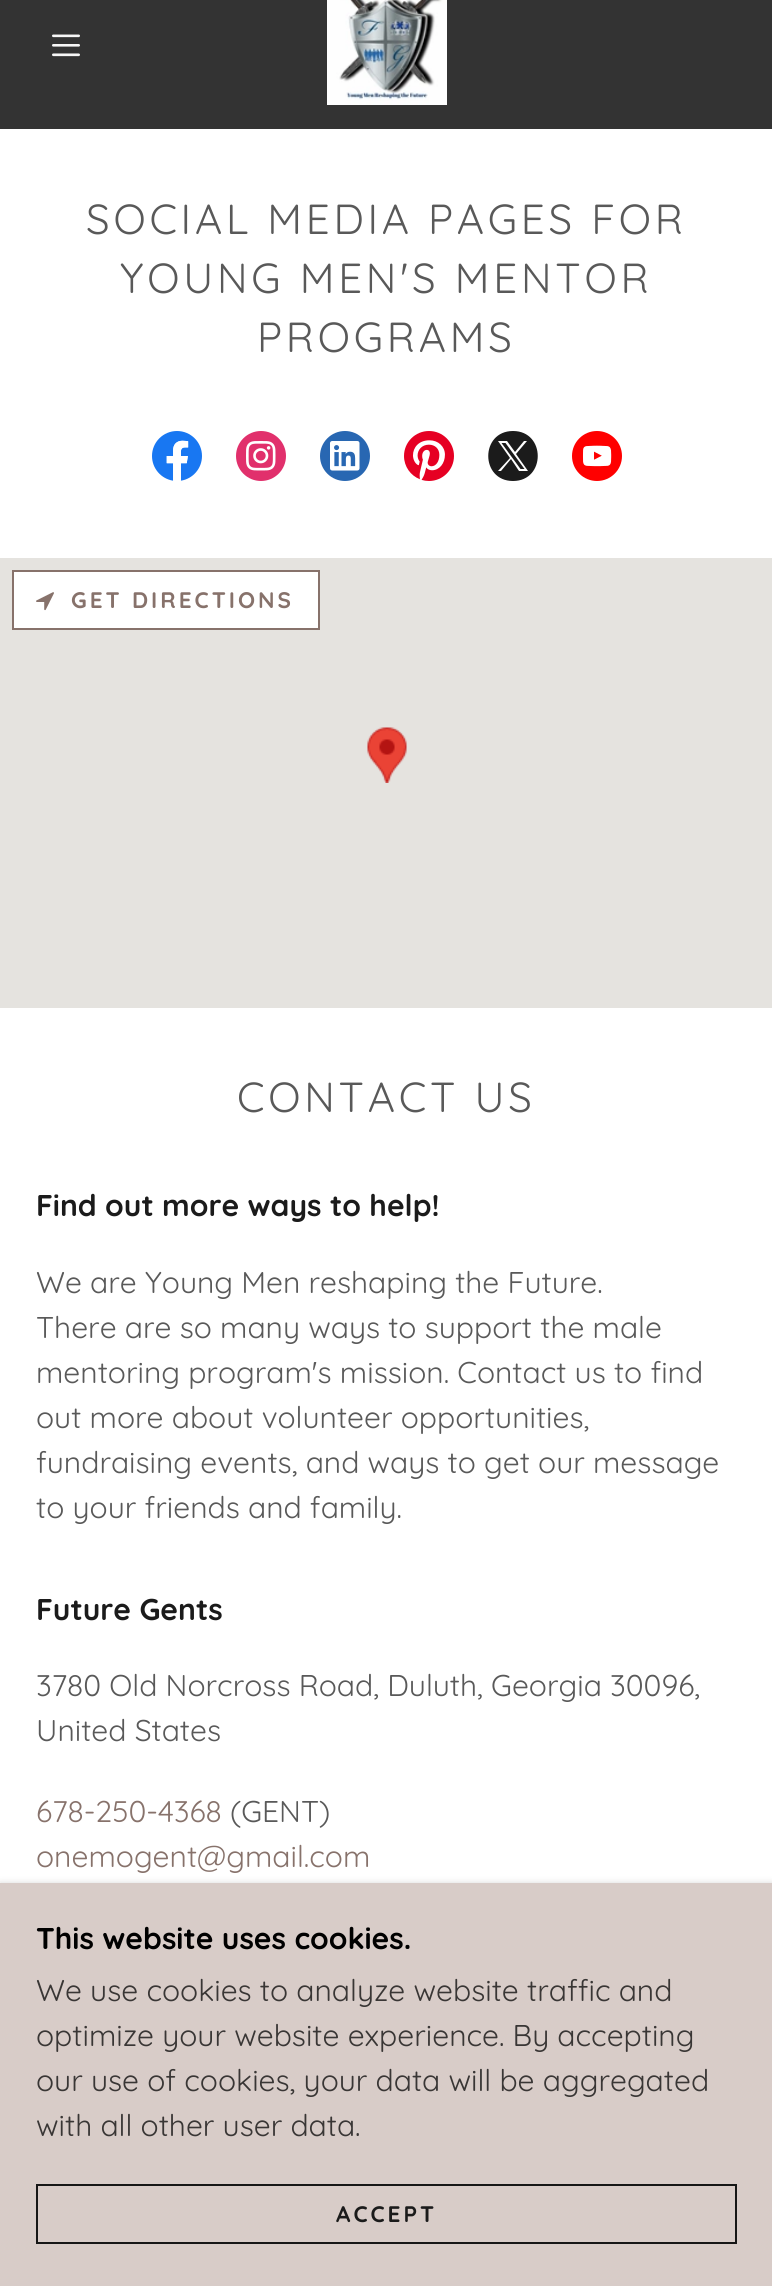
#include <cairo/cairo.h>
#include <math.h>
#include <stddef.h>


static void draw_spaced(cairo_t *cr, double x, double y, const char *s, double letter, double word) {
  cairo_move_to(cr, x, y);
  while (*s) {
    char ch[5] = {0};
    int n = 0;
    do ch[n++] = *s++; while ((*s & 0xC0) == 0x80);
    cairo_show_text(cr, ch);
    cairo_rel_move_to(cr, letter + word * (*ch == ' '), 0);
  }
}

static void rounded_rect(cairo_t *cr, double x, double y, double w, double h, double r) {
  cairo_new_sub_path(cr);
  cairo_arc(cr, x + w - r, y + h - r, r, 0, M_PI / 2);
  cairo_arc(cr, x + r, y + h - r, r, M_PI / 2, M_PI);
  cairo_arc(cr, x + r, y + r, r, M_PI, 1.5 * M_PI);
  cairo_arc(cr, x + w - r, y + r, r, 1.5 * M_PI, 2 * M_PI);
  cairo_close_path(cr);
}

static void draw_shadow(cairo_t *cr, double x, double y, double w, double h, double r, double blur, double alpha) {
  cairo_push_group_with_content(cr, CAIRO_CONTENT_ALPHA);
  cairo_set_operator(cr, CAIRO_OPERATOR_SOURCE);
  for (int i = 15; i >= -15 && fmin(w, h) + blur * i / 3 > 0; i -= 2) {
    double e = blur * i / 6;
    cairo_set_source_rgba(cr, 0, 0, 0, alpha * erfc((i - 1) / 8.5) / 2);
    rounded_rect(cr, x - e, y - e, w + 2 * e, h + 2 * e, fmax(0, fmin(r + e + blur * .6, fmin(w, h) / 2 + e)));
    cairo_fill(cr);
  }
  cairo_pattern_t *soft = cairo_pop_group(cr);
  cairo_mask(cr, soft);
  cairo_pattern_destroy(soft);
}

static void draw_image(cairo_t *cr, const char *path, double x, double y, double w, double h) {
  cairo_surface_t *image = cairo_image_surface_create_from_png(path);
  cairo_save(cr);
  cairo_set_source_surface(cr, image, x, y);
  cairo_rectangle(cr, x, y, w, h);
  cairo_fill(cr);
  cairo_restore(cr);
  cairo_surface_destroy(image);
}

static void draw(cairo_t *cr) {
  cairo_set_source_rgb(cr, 51 / 255.0, 51 / 255.0, 51 / 255.0);
  cairo_paint(cr);
  draw_image(cr, "images/1.png", 52, 34, 28, 23);
  draw_image(cr, "images/2.png", 327, 0, 120, 105);
  cairo_set_source_rgb(cr, 1, 1, 1);
  cairo_rectangle(cr, 0, 129, 772, 429);
  cairo_fill(cr);
  draw_image(cr, "images/3.png", 152, 431, 50, 50);
  draw_image(cr, "images/4.png", 236, 431, 50, 50);
  draw_image(cr, "images/5.png", 320, 431, 50, 50);
  draw_image(cr, "images/6.png", 404, 431, 50, 50);
  cairo_set_source_rgb(cr, 27 / 255.0, 27 / 255.0, 27 / 255.0);
  cairo_new_path(cr);
  cairo_move_to(cr, 520.5, 469);
  cairo_line_to(cr, 501.5, 443);
  cairo_line_to(cr, 505.5, 443);
  cairo_line_to(cr, 524.5, 469);
  cairo_close_path(cr);
  cairo_fill(cr);
  cairo_set_fill_rule(cr, CAIRO_FILL_RULE_EVEN_ODD);
  cairo_new_path(cr);
  cairo_move_to(cr, 513, 481);
  cairo_curve_to(cr, 546, 481, 546, 431, 513, 431);
  cairo_curve_to(cr, 480, 431, 480, 481, 513, 481);
  cairo_close_path(cr);
  cairo_move_to(cr, 510, 458);
  cairo_line_to(cr, 498, 441);
  cairo_line_to(cr, 507, 441);
  cairo_line_to(cr, 515, 452);
  cairo_line_to(cr, 524, 441);
  cairo_line_to(cr, 527, 441);
  cairo_line_to(cr, 516, 454);
  cairo_line_to(cr, 528, 471);
  cairo_line_to(cr, 519, 471);
  cairo_line_to(cr, 511, 459);
  cairo_line_to(cr, 501, 471);
  cairo_line_to(cr, 498, 471);
  cairo_close_path(cr);
  cairo_fill(cr);
  draw_image(cr, "images/7.png", 572, 431, 50, 50);
  cairo_set_source_rgb(cr, 1, 1, 1);
  cairo_rectangle(cr, 0, 1008, 772, 875);
  cairo_fill(cr);
  cairo_set_source_rgb(cr, 229 / 255.0, 227 / 255.0, 223 / 255.0);
  cairo_rectangle(cr, 0, 558, 772, 450);
  cairo_fill(cr);
  draw_image(cr, "images/8.png", 367, 727, 40, 56);
  cairo_set_source_rgb(cr, 1, 1, 1);
  cairo_rectangle(cr, 13, 571, 306, 58);
  cairo_fill_preserve(cr);
  cairo_set_source_rgb(cr, 135 / 255.0, 114 / 255.0, 107 / 255.0);
  cairo_stroke(cr);
  draw_image(cr, "images/9.png", 36, 592, 18, 19);
  cairo_set_source_rgb(cr, 0, 0, 0);
  draw_shadow(cr, 0, 1886, 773, 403, 0, 4.5, 0.3);
  cairo_set_source_rgb(cr, 216 / 255.0, 204 / 255.0, 200 / 255.0);
  cairo_rectangle(cr, 0, 1883, 772, 403);
  cairo_fill(cr);
  cairo_rectangle(cr, 37, 2185, 699, 58);
  cairo_set_source_rgb(cr, 22 / 255.0, 22 / 255.0, 22 / 255.0);
  cairo_stroke(cr);
  cairo_select_font_face(cr, "Quicksand", CAIRO_FONT_SLANT_NORMAL, CAIRO_FONT_WEIGHT_NORMAL);
  cairo_set_font_size(cr, 42);
  cairo_set_source_rgb(cr, 89 / 255.0, 89 / 255.0, 89 / 255.0);
  draw_spaced(cr, 86, 234, "SOCIAL MEDIA PAGES FOR", 3.8, 0);
  draw_spaced(cr, 120, 293, "YOUNG MEN'S MENTOR", 3.8, 0);
  draw_spaced(cr, 257, 352, "PROGRAMS", 3.8, 0);
  cairo_select_font_face(cr, "Quicksand", CAIRO_FONT_SLANT_NORMAL, CAIRO_FONT_WEIGHT_BOLD);
  cairo_set_font_size(cr, 22.5);
  cairo_set_source_rgb(cr, 135 / 255.0, 114 / 255.0, 107 / 255.0);
  draw_spaced(cr, 71, 608, "GET DIRECTIONS", 3, 0);
  cairo_select_font_face(cr, "Quicksand", CAIRO_FONT_SLANT_NORMAL, CAIRO_FONT_WEIGHT_NORMAL);
  cairo_set_font_size(cr, 42);
  cairo_set_source_rgb(cr, 89 / 255.0, 89 / 255.0, 89 / 255.0);
  draw_spaced(cr, 237, 1112, "CONTACT US", 3.8, 0);
  cairo_select_font_face(cr, "Quicksand", CAIRO_FONT_SLANT_NORMAL, CAIRO_FONT_WEIGHT_BOLD);
  cairo_set_font_size(cr, 30);
  cairo_set_source_rgb(cr, 27 / 255.0, 27 / 255.0, 27 / 255.0);
  cairo_move_to(cr, 36, 1216);
  cairo_show_text(cr, "Find out more ways to help!");
  cairo_select_font_face(cr, "Quicksand", CAIRO_FONT_SLANT_NORMAL, CAIRO_FONT_WEIGHT_NORMAL);
  cairo_set_source_rgb(cr, 89 / 255.0, 89 / 255.0, 89 / 255.0);
  cairo_move_to(cr, 36, 1293);
  cairo_show_text(cr, "We are Young Men reshaping the Future.");
  cairo_move_to(cr, 36, 1338);
  cairo_show_text(cr, "There are so many ways to support the male");
  cairo_move_to(cr, 36, 1383);
  cairo_show_text(cr, "mentoring program's mission. Contact us to find");
  cairo_move_to(cr, 36, 1428);
  cairo_show_text(cr, "out more about volunteer opportunities,");
  cairo_move_to(cr, 36, 1473);
  cairo_show_text(cr, "fundraising events, and ways to get our message");
  cairo_move_to(cr, 36, 1518);
  cairo_show_text(cr, "to your friends and family.");
  cairo_select_font_face(cr, "Quicksand", CAIRO_FONT_SLANT_NORMAL, CAIRO_FONT_WEIGHT_BOLD);
  cairo_set_source_rgb(cr, 27 / 255.0, 27 / 255.0, 27 / 255.0);
  cairo_move_to(cr, 36, 1620);
  cairo_show_text(cr, "Future Gents");
  cairo_select_font_face(cr, "Quicksand", CAIRO_FONT_SLANT_NORMAL, CAIRO_FONT_WEIGHT_NORMAL);
  cairo_set_source_rgb(cr, 89 / 255.0, 89 / 255.0, 89 / 255.0);
  cairo_move_to(cr, 36, 1696);
  cairo_show_text(cr, "3780 Old Norcross Road, Duluth, Georgia 30096,");
  cairo_move_to(cr, 36, 1741);
  cairo_show_text(cr, "United States");
  cairo_set_source_rgb(cr, 135 / 255.0, 114 / 255.0, 107 / 255.0);
  cairo_move_to(cr, 36, 1822);
  cairo_show_text(cr, "678-250-4368");
  cairo_set_source_rgb(cr, 89 / 255.0, 89 / 255.0, 89 / 255.0);
  cairo_move_to(cr, 230, 1822);
  cairo_show_text(cr, "(GENT)");
  cairo_set_source_rgb(cr, 135 / 255.0, 114 / 255.0, 107 / 255.0);
  cairo_move_to(cr, 36, 1867);
  cairo_show_text(cr, "onemogent@gmail.com");
  cairo_select_font_face(cr, "Quicksand", CAIRO_FONT_SLANT_NORMAL, CAIRO_FONT_WEIGHT_BOLD);
  cairo_set_source_rgb(cr, 0, 0, 0);
  cairo_move_to(cr, 36, 1949);
  cairo_show_text(cr, "This website uses cookies.");
  cairo_select_font_face(cr, "Quicksand", CAIRO_FONT_SLANT_NORMAL, CAIRO_FONT_WEIGHT_NORMAL);
  cairo_set_source_rgb(cr, 57 / 255.0, 54 / 255.0, 53 / 255.0);
  cairo_move_to(cr, 36, 2001);
  cairo_show_text(cr, "We use cookies to analyze website traffic and");
  cairo_move_to(cr, 36, 2046);
  cairo_show_text(cr, "optimize your website experience. By accepting");
  cairo_move_to(cr, 36, 2091);
  cairo_show_text(cr, "our use of cookies, your data will be aggregated");
  cairo_move_to(cr, 36, 2136);
  cairo_show_text(cr, "with all other user data.");
  cairo_select_font_face(cr, "Quicksand", CAIRO_FONT_SLANT_NORMAL, CAIRO_FONT_WEIGHT_BOLD);
  cairo_set_font_size(cr, 22.5);
  cairo_set_source_rgb(cr, 27 / 255.0, 27 / 255.0, 27 / 255.0);
  draw_spaced(cr, 336, 2222, "ACCEPT", 3, 0);
}

int main(void) {
  cairo_surface_t *surface = cairo_image_surface_create(CAIRO_FORMAT_RGB24, 772, 2286);
  cairo_t *cr = cairo_create(surface);
  cairo_font_options_t *options = cairo_font_options_create();
  cairo_font_options_set_hint_metrics(options, CAIRO_HINT_METRICS_OFF);
  cairo_font_options_set_hint_style(options, CAIRO_HINT_STYLE_NONE);
  cairo_set_font_options(cr, options);
  cairo_set_miter_limit(cr, 4);
  draw(cr);
  cairo_surface_write_to_png(surface, "out.png");
  cairo_font_options_destroy(options);
  cairo_destroy(cr);
  cairo_surface_destroy(surface);
  return 0;
}
